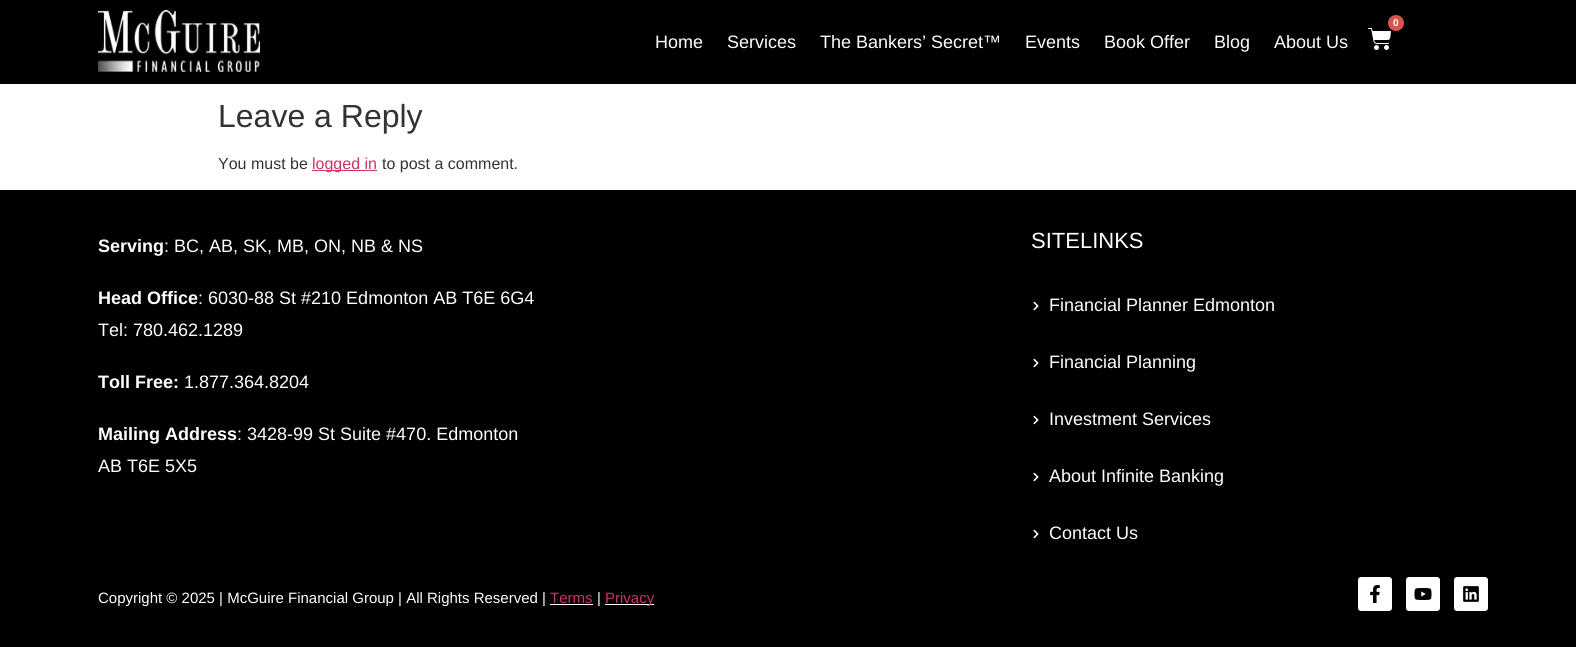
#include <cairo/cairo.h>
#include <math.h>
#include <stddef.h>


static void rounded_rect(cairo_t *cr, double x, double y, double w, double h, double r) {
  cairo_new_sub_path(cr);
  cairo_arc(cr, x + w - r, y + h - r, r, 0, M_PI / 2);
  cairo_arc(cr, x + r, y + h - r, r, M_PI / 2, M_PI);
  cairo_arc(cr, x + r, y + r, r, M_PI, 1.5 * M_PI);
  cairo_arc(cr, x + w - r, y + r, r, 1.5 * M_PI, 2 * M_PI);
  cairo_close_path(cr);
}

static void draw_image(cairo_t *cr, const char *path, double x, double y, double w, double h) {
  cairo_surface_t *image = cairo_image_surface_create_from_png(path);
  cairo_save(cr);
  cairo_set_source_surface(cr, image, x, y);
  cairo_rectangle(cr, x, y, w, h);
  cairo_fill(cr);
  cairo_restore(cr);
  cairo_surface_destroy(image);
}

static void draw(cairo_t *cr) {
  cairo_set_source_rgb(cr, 1, 1, 1);
  cairo_paint(cr);
  cairo_set_source_rgb(cr, 0, 0, 0);
  cairo_rectangle(cr, 0, 0, 1576, 84);
  cairo_fill(cr);
  draw_image(cr, "images/1.png", 98, 10, 162, 62);
  draw_image(cr, "images/2.png", 1368, 28, 23, 22);
  cairo_set_source_rgb(cr, 217 / 255.0, 83 / 255.0, 79 / 255.0);
  cairo_arc(cr, 1396, 23, 8, 0, 2 * M_PI);
  cairo_fill(cr);
  cairo_set_source_rgb(cr, 204 / 255.0, 51 / 255.0, 102 / 255.0);
  cairo_rectangle(cr, 312, 170, 65, 1);
  cairo_fill(cr);
  cairo_set_source_rgb(cr, 0, 0, 0);
  cairo_rectangle(cr, 0, 190, 1576, 457);
  cairo_fill(cr);
  draw_image(cr, "images/3.png", 1033, 301, 6, 10);
  draw_image(cr, "images/3.png", 1033, 358, 6, 10);
  draw_image(cr, "images/3.png", 1033, 415, 6, 10);
  draw_image(cr, "images/3.png", 1033, 472, 6, 10);
  draw_image(cr, "images/3.png", 1033, 529, 6, 10);
  cairo_set_source_rgb(cr, 1, 1, 1);
  cairo_rectangle(cr, 550, 604, 43, 1);
  cairo_fill(cr);
  cairo_rectangle(cr, 605, 604, 49, 1);
  cairo_fill(cr);
  rounded_rect(cr, 1358, 577, 34, 34, 3);
  cairo_fill(cr);
  draw_image(cr, "images/4.png", 1370, 585, 10, 18);
  rounded_rect(cr, 1406, 577, 34, 34, 3);
  cairo_fill(cr);
  draw_image(cr, "images/5.png", 1414, 588, 18, 12);
  rounded_rect(cr, 1454, 577, 34, 34, 3);
  cairo_fill(cr);
  draw_image(cr, "images/6.png", 1463, 586, 16, 16);
  cairo_select_font_face(cr, "Liberation Sans", CAIRO_FONT_SLANT_NORMAL, CAIRO_FONT_WEIGHT_BOLD);
  cairo_set_font_size(cr, 10);
  cairo_move_to(cr, 1393, 26);
  cairo_show_text(cr, "0");
  cairo_select_font_face(cr, "Liberation Sans", CAIRO_FONT_SLANT_NORMAL, CAIRO_FONT_WEIGHT_NORMAL);
  cairo_set_font_size(cr, 18);
  cairo_move_to(cr, 655, 48);
  cairo_show_text(cr, "Home");
  cairo_move_to(cr, 727, 48);
  cairo_show_text(cr, "Services");
  cairo_move_to(cr, 820, 48);
  cairo_show_text(cr, "The Bankers’ Secret™");
  cairo_move_to(cr, 1025, 48);
  cairo_show_text(cr, "Events");
  cairo_move_to(cr, 1104, 48);
  cairo_show_text(cr, "Book Offer");
  cairo_move_to(cr, 1214, 48);
  cairo_show_text(cr, "Blog");
  cairo_move_to(cr, 1274, 48);
  cairo_show_text(cr, "About Us");
  cairo_set_font_size(cr, 32);
  cairo_set_source_rgb(cr, 51 / 255.0, 51 / 255.0, 51 / 255.0);
  cairo_move_to(cr, 218, 127);
  cairo_show_text(cr, "Leave a Reply");
  cairo_set_font_size(cr, 16);
  cairo_move_to(cr, 218, 169);
  cairo_show_text(cr, "You must be");
  cairo_set_source_rgb(cr, 204 / 255.0, 51 / 255.0, 102 / 255.0);
  cairo_move_to(cr, 312, 169);
  cairo_show_text(cr, "logged in");
  cairo_set_source_rgb(cr, 51 / 255.0, 51 / 255.0, 51 / 255.0);
  cairo_move_to(cr, 382, 169);
  cairo_show_text(cr, "to post a comment.");
  cairo_select_font_face(cr, "Liberation Sans", CAIRO_FONT_SLANT_NORMAL, CAIRO_FONT_WEIGHT_BOLD);
  cairo_set_font_size(cr, 18);
  cairo_set_source_rgb(cr, 1, 1, 1);
  cairo_move_to(cr, 98, 252);
  cairo_show_text(cr, "Serving");
  cairo_select_font_face(cr, "Liberation Sans", CAIRO_FONT_SLANT_NORMAL, CAIRO_FONT_WEIGHT_NORMAL);
  cairo_move_to(cr, 164, 252);
  cairo_show_text(cr, ": BC, AB, SK, MB, ON, NB & NS");
  cairo_select_font_face(cr, "Liberation Sans", CAIRO_FONT_SLANT_NORMAL, CAIRO_FONT_WEIGHT_BOLD);
  cairo_move_to(cr, 98, 304);
  cairo_show_text(cr, "Head Office");
  cairo_select_font_face(cr, "Liberation Sans", CAIRO_FONT_SLANT_NORMAL, CAIRO_FONT_WEIGHT_NORMAL);
  cairo_move_to(cr, 198, 304);
  cairo_show_text(cr, ": 6030-88 St #210 Edmonton AB T6E 6G4");
  cairo_move_to(cr, 98, 336);
  cairo_show_text(cr, "Tel: 780.462.1289");
  cairo_select_font_face(cr, "Liberation Sans", CAIRO_FONT_SLANT_NORMAL, CAIRO_FONT_WEIGHT_BOLD);
  cairo_move_to(cr, 98, 388);
  cairo_show_text(cr, "Toll Free:");
  cairo_select_font_face(cr, "Liberation Sans", CAIRO_FONT_SLANT_NORMAL, CAIRO_FONT_WEIGHT_NORMAL);
  cairo_move_to(cr, 184, 388);
  cairo_show_text(cr, "1.877.364.8204");
  cairo_select_font_face(cr, "Liberation Sans", CAIRO_FONT_SLANT_NORMAL, CAIRO_FONT_WEIGHT_BOLD);
  cairo_move_to(cr, 98, 440);
  cairo_show_text(cr, "Mailing Address");
  cairo_select_font_face(cr, "Liberation Sans", CAIRO_FONT_SLANT_NORMAL, CAIRO_FONT_WEIGHT_NORMAL);
  cairo_move_to(cr, 237, 440);
  cairo_show_text(cr, ": 3428-99 St Suite #470. Edmonton");
  cairo_move_to(cr, 98, 472);
  cairo_show_text(cr, "AB T6E 5X5");
  cairo_set_font_size(cr, 22);
  cairo_move_to(cr, 1031, 248);
  cairo_show_text(cr, "SITELINKS");
  cairo_set_font_size(cr, 18);
  cairo_move_to(cr, 1049, 311);
  cairo_show_text(cr, "Financial Planner Edmonton");
  cairo_move_to(cr, 1049, 368);
  cairo_show_text(cr, "Financial Planning");
  cairo_move_to(cr, 1049, 425);
  cairo_show_text(cr, "Investment Services");
  cairo_move_to(cr, 1049, 482);
  cairo_show_text(cr, "About Infinite Banking");
  cairo_move_to(cr, 1049, 539);
  cairo_show_text(cr, "Contact Us");
  cairo_set_font_size(cr, 15);
  cairo_move_to(cr, 98, 603);
  cairo_show_text(cr, "Copyright © 2025 | McGuire Financial Group | All Rights Reserved |");
  cairo_set_source_rgb(cr, 204 / 255.0, 51 / 255.0, 102 / 255.0);
  cairo_move_to(cr, 550, 603);
  cairo_show_text(cr, "Terms");
  cairo_set_source_rgb(cr, 1, 1, 1);
  cairo_move_to(cr, 597, 603);
  cairo_show_text(cr, "|");
  cairo_set_source_rgb(cr, 204 / 255.0, 51 / 255.0, 102 / 255.0);
  cairo_move_to(cr, 605, 603);
  cairo_show_text(cr, "Privacy");
}

int main(void) {
  cairo_surface_t *surface = cairo_image_surface_create(CAIRO_FORMAT_RGB24, 1576, 647);
  cairo_t *cr = cairo_create(surface);
  cairo_font_options_t *options = cairo_font_options_create();
  cairo_font_options_set_hint_metrics(options, CAIRO_HINT_METRICS_OFF);
  cairo_font_options_set_hint_style(options, CAIRO_HINT_STYLE_NONE);
  cairo_set_font_options(cr, options);
  cairo_set_miter_limit(cr, 4);
  draw(cr);
  cairo_surface_write_to_png(surface, "out.png");
  cairo_font_options_destroy(options);
  cairo_destroy(cr);
  cairo_surface_destroy(surface);
  return 0;
}
